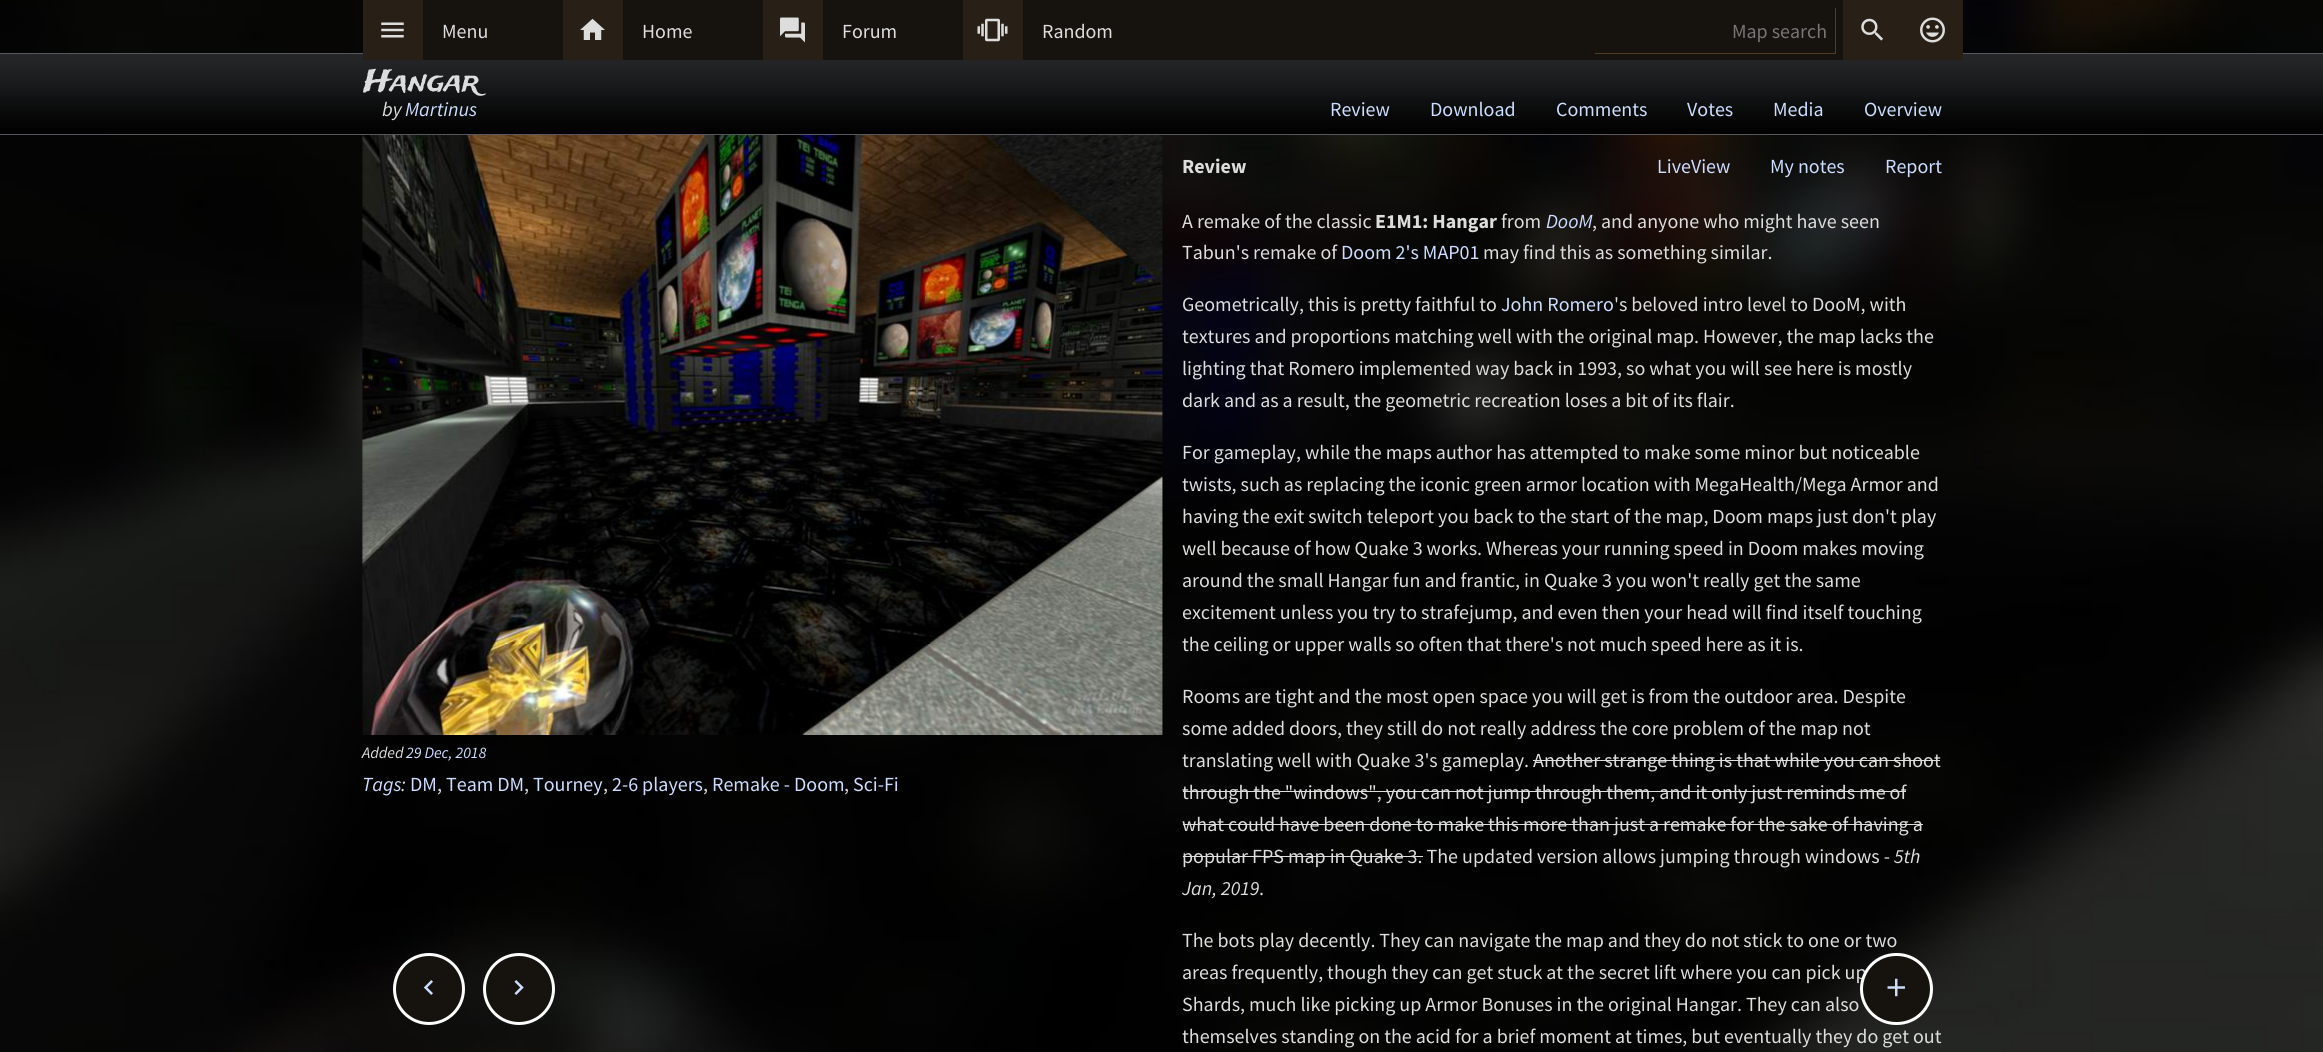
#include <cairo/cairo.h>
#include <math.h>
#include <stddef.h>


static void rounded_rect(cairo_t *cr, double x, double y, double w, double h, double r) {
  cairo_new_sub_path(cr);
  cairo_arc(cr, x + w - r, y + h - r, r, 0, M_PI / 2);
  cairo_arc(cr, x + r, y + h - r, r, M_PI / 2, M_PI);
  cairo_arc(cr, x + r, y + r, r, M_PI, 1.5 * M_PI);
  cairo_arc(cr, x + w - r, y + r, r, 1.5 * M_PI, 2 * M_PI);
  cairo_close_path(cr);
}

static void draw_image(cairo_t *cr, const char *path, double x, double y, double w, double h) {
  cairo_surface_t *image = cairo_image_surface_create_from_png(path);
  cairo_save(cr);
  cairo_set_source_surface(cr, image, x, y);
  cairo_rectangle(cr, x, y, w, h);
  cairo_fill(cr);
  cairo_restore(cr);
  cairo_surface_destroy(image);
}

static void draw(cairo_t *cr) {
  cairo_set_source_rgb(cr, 1, 1, 1);
  cairo_paint(cr);
  draw_image(cr, "images/1.png", 0, 0, 2323, 1052);
  draw_image(cr, "images/8.png", 0, 54, 2323, 80);
  cairo_set_source_rgb(cr, 86 / 255.0, 88 / 255.0, 93 / 255.0);
  cairo_rectangle(cr, 0, 53, 2323, 1);
  cairo_fill(cr);
  cairo_set_source_rgb(cr, 22 / 255.0, 19 / 255.0, 15 / 255.0);
  cairo_rectangle(cr, 423, 0, 1420, 60);
  cairo_fill(cr);
  cairo_set_source_rgb(cr, 40 / 255.0, 32 / 255.0, 22 / 255.0);
  cairo_rectangle(cr, 363, 0, 60, 60);
  cairo_fill(cr);
  draw_image(cr, "images/2.png", 381, 22, 23, 16);
  cairo_rectangle(cr, 563, 0, 60, 60);
  cairo_fill(cr);
  draw_image(cr, "images/3.png", 580, 18, 25, 22);
  cairo_rectangle(cr, 763, 0, 60, 60);
  cairo_fill(cr);
  draw_image(cr, "images/4.png", 780, 17, 25, 26);
  cairo_rectangle(cr, 963, 0, 60, 60);
  cairo_fill(cr);
  draw_image(cr, "images/5.png", 977, 18, 31, 24);
  cairo_set_source_rgb(cr, 84 / 255.0, 60 / 255.0, 34 / 255.0);
  cairo_rectangle(cr, 1835, 8, 1, 46);
  cairo_fill(cr);
  cairo_rectangle(cr, 1595, 53, 241, 1);
  cairo_fill(cr);
  cairo_set_source_rgb(cr, 40 / 255.0, 32 / 255.0, 22 / 255.0);
  cairo_rectangle(cr, 1843, 0, 120, 60);
  cairo_fill(cr);
  draw_image(cr, "images/6.png", 1861, 18, 22, 23);
  draw_image(cr, "images/7.png", 1920, 17, 25, 26);
  cairo_set_source_rgb(cr, 86 / 255.0, 88 / 255.0, 93 / 255.0);
  cairo_rectangle(cr, 0, 134, 2323, 1);
  cairo_fill(cr);
  draw_image(cr, "images/9.png", 362, 135, 801, 600);
  cairo_set_source_rgb(cr, 221 / 255.0, 221 / 255.0, 221 / 255.0);
  cairo_rectangle(cr, 1533, 760, 407, 1);
  cairo_fill(cr);
  cairo_rectangle(cr, 1183, 791, 723, 1);
  cairo_fill(cr);
  cairo_rectangle(cr, 1183, 824, 740, 1);
  cairo_fill(cr);
  cairo_rectangle(cr, 1183, 856, 240, 1);
  cairo_fill(cr);
  cairo_set_source_rgb(cr, 22 / 255.0, 19 / 255.0, 15 / 255.0);
  cairo_arc(cr, 429, 989, 34.5, 0, 2 * M_PI);
  cairo_fill_preserve(cr);
  cairo_set_source_rgb(cr, 1, 1, 1);
  cairo_set_line_width(cr, 3);
  cairo_stroke(cr);
  draw_image(cr, "images/10.png", 423, 980, 10, 15);
  cairo_set_source_rgb(cr, 22 / 255.0, 19 / 255.0, 15 / 255.0);
  cairo_arc(cr, 519, 989, 34.5, 0, 2 * M_PI);
  cairo_fill_preserve(cr);
  cairo_set_source_rgb(cr, 1, 1, 1);
  cairo_stroke(cr);
  draw_image(cr, "images/11.png", 514, 980, 10, 15);
  cairo_select_font_face(cr, "Source Sans Pro", CAIRO_FONT_SLANT_NORMAL, CAIRO_FONT_WEIGHT_NORMAL);
  cairo_set_font_size(cr, 20);
  cairo_set_source_rgb(cr, 221 / 255.0, 221 / 255.0, 221 / 255.0);
  cairo_move_to(cr, 442, 38);
  cairo_show_text(cr, "Menu");
  cairo_move_to(cr, 642, 38);
  cairo_show_text(cr, "Home");
  cairo_move_to(cr, 842, 38);
  cairo_show_text(cr, "Forum");
  cairo_move_to(cr, 1042, 38);
  cairo_show_text(cr, "Random");
  cairo_set_source_rgb(cr, 117 / 255.0, 117 / 255.0, 117 / 255.0);
  cairo_move_to(cr, 1732, 38);
  cairo_show_text(cr, "Map search");
  cairo_select_font_face(cr, "Trade Winds", CAIRO_FONT_SLANT_NORMAL, CAIRO_FONT_WEIGHT_NORMAL);
  cairo_set_font_size(cr, 30);
  cairo_set_source_rgb(cr, 221 / 255.0, 221 / 255.0, 221 / 255.0);
  cairo_move_to(cr, 364, 91);
  cairo_show_text(cr, "Hangar");
  cairo_select_font_face(cr, "Source Sans Pro", CAIRO_FONT_SLANT_ITALIC, CAIRO_FONT_WEIGHT_NORMAL);
  cairo_set_font_size(cr, 20);
  cairo_move_to(cr, 382, 116);
  cairo_show_text(cr, "by");
  cairo_set_source_rgb(cr, 204 / 255.0, 221 / 255.0, 1);
  cairo_move_to(cr, 405, 116);
  cairo_show_text(cr, "Martinus");
  cairo_select_font_face(cr, "Source Sans Pro", CAIRO_FONT_SLANT_NORMAL, CAIRO_FONT_WEIGHT_NORMAL);
  cairo_move_to(cr, 1330, 116);
  cairo_show_text(cr, "Review");
  cairo_move_to(cr, 1430, 116);
  cairo_show_text(cr, "Download");
  cairo_move_to(cr, 1556, 116);
  cairo_show_text(cr, "Comments");
  cairo_move_to(cr, 1687, 116);
  cairo_show_text(cr, "Votes");
  cairo_move_to(cr, 1773, 116);
  cairo_show_text(cr, "Media");
  cairo_move_to(cr, 1864, 116);
  cairo_show_text(cr, "Overview");
  cairo_select_font_face(cr, "Source Sans Pro", CAIRO_FONT_SLANT_ITALIC, CAIRO_FONT_WEIGHT_NORMAL);
  cairo_set_font_size(cr, 16);
  cairo_set_source_rgb(cr, 221 / 255.0, 221 / 255.0, 221 / 255.0);
  cairo_move_to(cr, 362, 758);
  cairo_show_text(cr, "Added");
  cairo_set_source_rgb(cr, 204 / 255.0, 221 / 255.0, 1);
  cairo_move_to(cr, 406, 758);
  cairo_show_text(cr, "29 Dec, 2018");
  cairo_set_font_size(cr, 20);
  cairo_move_to(cr, 362, 791);
  cairo_show_text(cr, "Tags");
  cairo_set_source_rgb(cr, 221 / 255.0, 221 / 255.0, 221 / 255.0);
  cairo_move_to(cr, 401, 791);
  cairo_show_text(cr, ":");
  cairo_select_font_face(cr, "Source Sans Pro", CAIRO_FONT_SLANT_NORMAL, CAIRO_FONT_WEIGHT_NORMAL);
  cairo_set_source_rgb(cr, 204 / 255.0, 221 / 255.0, 1);
  cairo_move_to(cr, 410, 791);
  cairo_show_text(cr, "DM");
  cairo_set_source_rgb(cr, 221 / 255.0, 221 / 255.0, 221 / 255.0);
  cairo_move_to(cr, 437, 791);
  cairo_show_text(cr, ",");
  cairo_set_source_rgb(cr, 204 / 255.0, 221 / 255.0, 1);
  cairo_move_to(cr, 446, 791);
  cairo_show_text(cr, "Team DM");
  cairo_set_source_rgb(cr, 221 / 255.0, 221 / 255.0, 221 / 255.0);
  cairo_move_to(cr, 524, 791);
  cairo_show_text(cr, ",");
  cairo_set_source_rgb(cr, 204 / 255.0, 221 / 255.0, 1);
  cairo_move_to(cr, 533, 791);
  cairo_show_text(cr, "Tourney");
  cairo_set_source_rgb(cr, 221 / 255.0, 221 / 255.0, 221 / 255.0);
  cairo_move_to(cr, 603, 791);
  cairo_show_text(cr, ",");
  cairo_set_source_rgb(cr, 204 / 255.0, 221 / 255.0, 1);
  cairo_move_to(cr, 612, 791);
  cairo_show_text(cr, "2-6 players");
  cairo_set_source_rgb(cr, 221 / 255.0, 221 / 255.0, 221 / 255.0);
  cairo_move_to(cr, 703, 791);
  cairo_show_text(cr, ",");
  cairo_set_source_rgb(cr, 204 / 255.0, 221 / 255.0, 1);
  cairo_move_to(cr, 712, 791);
  cairo_show_text(cr, "Remake - Doom");
  cairo_set_source_rgb(cr, 221 / 255.0, 221 / 255.0, 221 / 255.0);
  cairo_move_to(cr, 844, 791);
  cairo_show_text(cr, ",");
  cairo_set_source_rgb(cr, 204 / 255.0, 221 / 255.0, 1);
  cairo_move_to(cr, 853, 791);
  cairo_show_text(cr, "Sci-Fi");
  cairo_select_font_face(cr, "Source Sans Pro", CAIRO_FONT_SLANT_NORMAL, CAIRO_FONT_WEIGHT_BOLD);
  cairo_set_source_rgb(cr, 221 / 255.0, 221 / 255.0, 221 / 255.0);
  cairo_move_to(cr, 1182, 173);
  cairo_show_text(cr, "Review");
  cairo_select_font_face(cr, "Source Sans Pro", CAIRO_FONT_SLANT_NORMAL, CAIRO_FONT_WEIGHT_NORMAL);
  cairo_set_source_rgb(cr, 204 / 255.0, 221 / 255.0, 1);
  cairo_move_to(cr, 1657, 173);
  cairo_show_text(cr, "LiveView");
  cairo_move_to(cr, 1770, 173);
  cairo_show_text(cr, "My notes");
  cairo_move_to(cr, 1885, 173);
  cairo_show_text(cr, "Report");
  cairo_set_source_rgb(cr, 221 / 255.0, 221 / 255.0, 221 / 255.0);
  cairo_move_to(cr, 1182, 228);
  cairo_show_text(cr, "A remake of the classic");
  cairo_select_font_face(cr, "Source Sans Pro", CAIRO_FONT_SLANT_NORMAL, CAIRO_FONT_WEIGHT_BOLD);
  cairo_move_to(cr, 1375, 228);
  cairo_show_text(cr, "E1M1: Hangar");
  cairo_select_font_face(cr, "Source Sans Pro", CAIRO_FONT_SLANT_NORMAL, CAIRO_FONT_WEIGHT_NORMAL);
  cairo_move_to(cr, 1501, 228);
  cairo_show_text(cr, "from");
  cairo_select_font_face(cr, "Source Sans Pro", CAIRO_FONT_SLANT_ITALIC, CAIRO_FONT_WEIGHT_NORMAL);
  cairo_set_source_rgb(cr, 204 / 255.0, 221 / 255.0, 1);
  cairo_move_to(cr, 1546, 228);
  cairo_show_text(cr, "DooM");
  cairo_select_font_face(cr, "Source Sans Pro", CAIRO_FONT_SLANT_NORMAL, CAIRO_FONT_WEIGHT_NORMAL);
  cairo_set_source_rgb(cr, 221 / 255.0, 221 / 255.0, 221 / 255.0);
  cairo_move_to(cr, 1592, 228);
  cairo_show_text(cr, ", and anyone who might have seen");
  cairo_move_to(cr, 1182, 259);
  cairo_show_text(cr, "Tabun's remake of");
  cairo_set_source_rgb(cr, 204 / 255.0, 221 / 255.0, 1);
  cairo_move_to(cr, 1341, 259);
  cairo_show_text(cr, "Doom 2's MAP01");
  cairo_set_source_rgb(cr, 221 / 255.0, 221 / 255.0, 221 / 255.0);
  cairo_move_to(cr, 1483, 259);
  cairo_show_text(cr, "may find this as something similar.");
  cairo_move_to(cr, 1182, 311);
  cairo_show_text(cr, "Geometrically, this is pretty faithful to");
  cairo_set_source_rgb(cr, 204 / 255.0, 221 / 255.0, 1);
  cairo_move_to(cr, 1501, 311);
  cairo_show_text(cr, "John Romero");
  cairo_set_source_rgb(cr, 221 / 255.0, 221 / 255.0, 221 / 255.0);
  cairo_move_to(cr, 1614, 311);
  cairo_show_text(cr, "'s beloved intro level to DooM, with");
  cairo_move_to(cr, 1182, 343);
  cairo_show_text(cr, "textures and proportions matching well with the original map. However, the map lacks the");
  cairo_move_to(cr, 1182, 375);
  cairo_show_text(cr, "lighting that Romero implemented way back in 1993, so what you will see here is mostly");
  cairo_move_to(cr, 1182, 407);
  cairo_show_text(cr, "dark and as a result, the geometric recreation loses a bit of its flair.");
  cairo_move_to(cr, 1182, 459);
  cairo_show_text(cr, "For gameplay, while the maps author has attempted to make some minor but noticeable");
  cairo_move_to(cr, 1182, 491);
  cairo_show_text(cr, "twists, such as replacing the iconic green armor location with MegaHealth/Mega Armor and");
  cairo_move_to(cr, 1182, 523);
  cairo_show_text(cr, "having the exit switch teleport you back to the start of the map, Doom maps just don't play");
  cairo_move_to(cr, 1182, 555);
  cairo_show_text(cr, "well because of how Quake 3 works. Whereas your running speed in Doom makes moving");
  cairo_move_to(cr, 1182, 587);
  cairo_show_text(cr, "around the small Hangar fun and frantic, in Quake 3 you won't really get the same");
  cairo_move_to(cr, 1182, 619);
  cairo_show_text(cr, "excitement unless you try to strafejump, and even then your head will find itself touching");
  cairo_move_to(cr, 1182, 651);
  cairo_show_text(cr, "the ceiling or upper walls so often that there's not much speed here as it is.");
  cairo_move_to(cr, 1182, 703);
  cairo_show_text(cr, "Rooms are tight and the most open space you will get is from the outdoor area. Despite");
  cairo_move_to(cr, 1182, 735);
  cairo_show_text(cr, "some added doors, they still do not really address the core problem of the map not");
  cairo_move_to(cr, 1182, 767);
  cairo_show_text(cr, "translating well with Quake 3's gameplay. Another strange thing is that while you can shoot");
  cairo_move_to(cr, 1182, 799);
  cairo_show_text(cr, "through the \"windows\", you can not jump through them, and it only just reminds me of");
  cairo_move_to(cr, 1182, 831);
  cairo_show_text(cr, "what could have been done to make this more than just a remake for the sake of having a");
  cairo_move_to(cr, 1182, 863);
  cairo_show_text(cr, "popular FPS map in Quake 3. The updated version allows jumping through windows -");
  cairo_select_font_face(cr, "Source Sans Pro", CAIRO_FONT_SLANT_ITALIC, CAIRO_FONT_WEIGHT_NORMAL);
  cairo_move_to(cr, 1894, 863);
  cairo_show_text(cr, "5th");
  cairo_move_to(cr, 1182, 895);
  cairo_show_text(cr, "Jan, 2019");
  cairo_select_font_face(cr, "Source Sans Pro", CAIRO_FONT_SLANT_NORMAL, CAIRO_FONT_WEIGHT_NORMAL);
  cairo_move_to(cr, 1259, 895);
  cairo_show_text(cr, ".");
  cairo_move_to(cr, 1182, 947);
  cairo_show_text(cr, "The bots play decently. They can navigate the map and they do not stick to one or two");
  cairo_move_to(cr, 1182, 979);
  cairo_show_text(cr, "areas frequently, though they can get stuck at the secret lift where you can pick up");
  cairo_move_to(cr, 1182, 1011);
  cairo_show_text(cr, "Shards, much like picking up Armor Bonuses in the original Hangar. They can also");
  cairo_move_to(cr, 1182, 1043);
  cairo_show_text(cr, "themselves standing on the acid for a brief moment at times, but eventually they do get out");
  cairo_set_source_rgb(cr, 22 / 255.0, 19 / 255.0, 15 / 255.0);
  rounded_rect(cr, 1861.5, 954.5, 70, 69, 34.5);
  cairo_fill_preserve(cr);
  cairo_set_source_rgb(cr, 1, 1, 1);
  cairo_stroke(cr);
  draw_image(cr, "images/12.png", 1887, 978, 18, 19);
}

int main(void) {
  cairo_surface_t *surface = cairo_image_surface_create(CAIRO_FORMAT_RGB24, 2323, 1052);
  cairo_t *cr = cairo_create(surface);
  cairo_font_options_t *options = cairo_font_options_create();
  cairo_font_options_set_hint_metrics(options, CAIRO_HINT_METRICS_OFF);
  cairo_font_options_set_hint_style(options, CAIRO_HINT_STYLE_NONE);
  cairo_set_font_options(cr, options);
  cairo_set_miter_limit(cr, 4);
  draw(cr);
  cairo_surface_write_to_png(surface, "out.png");
  cairo_font_options_destroy(options);
  cairo_destroy(cr);
  cairo_surface_destroy(surface);
  return 0;
}
